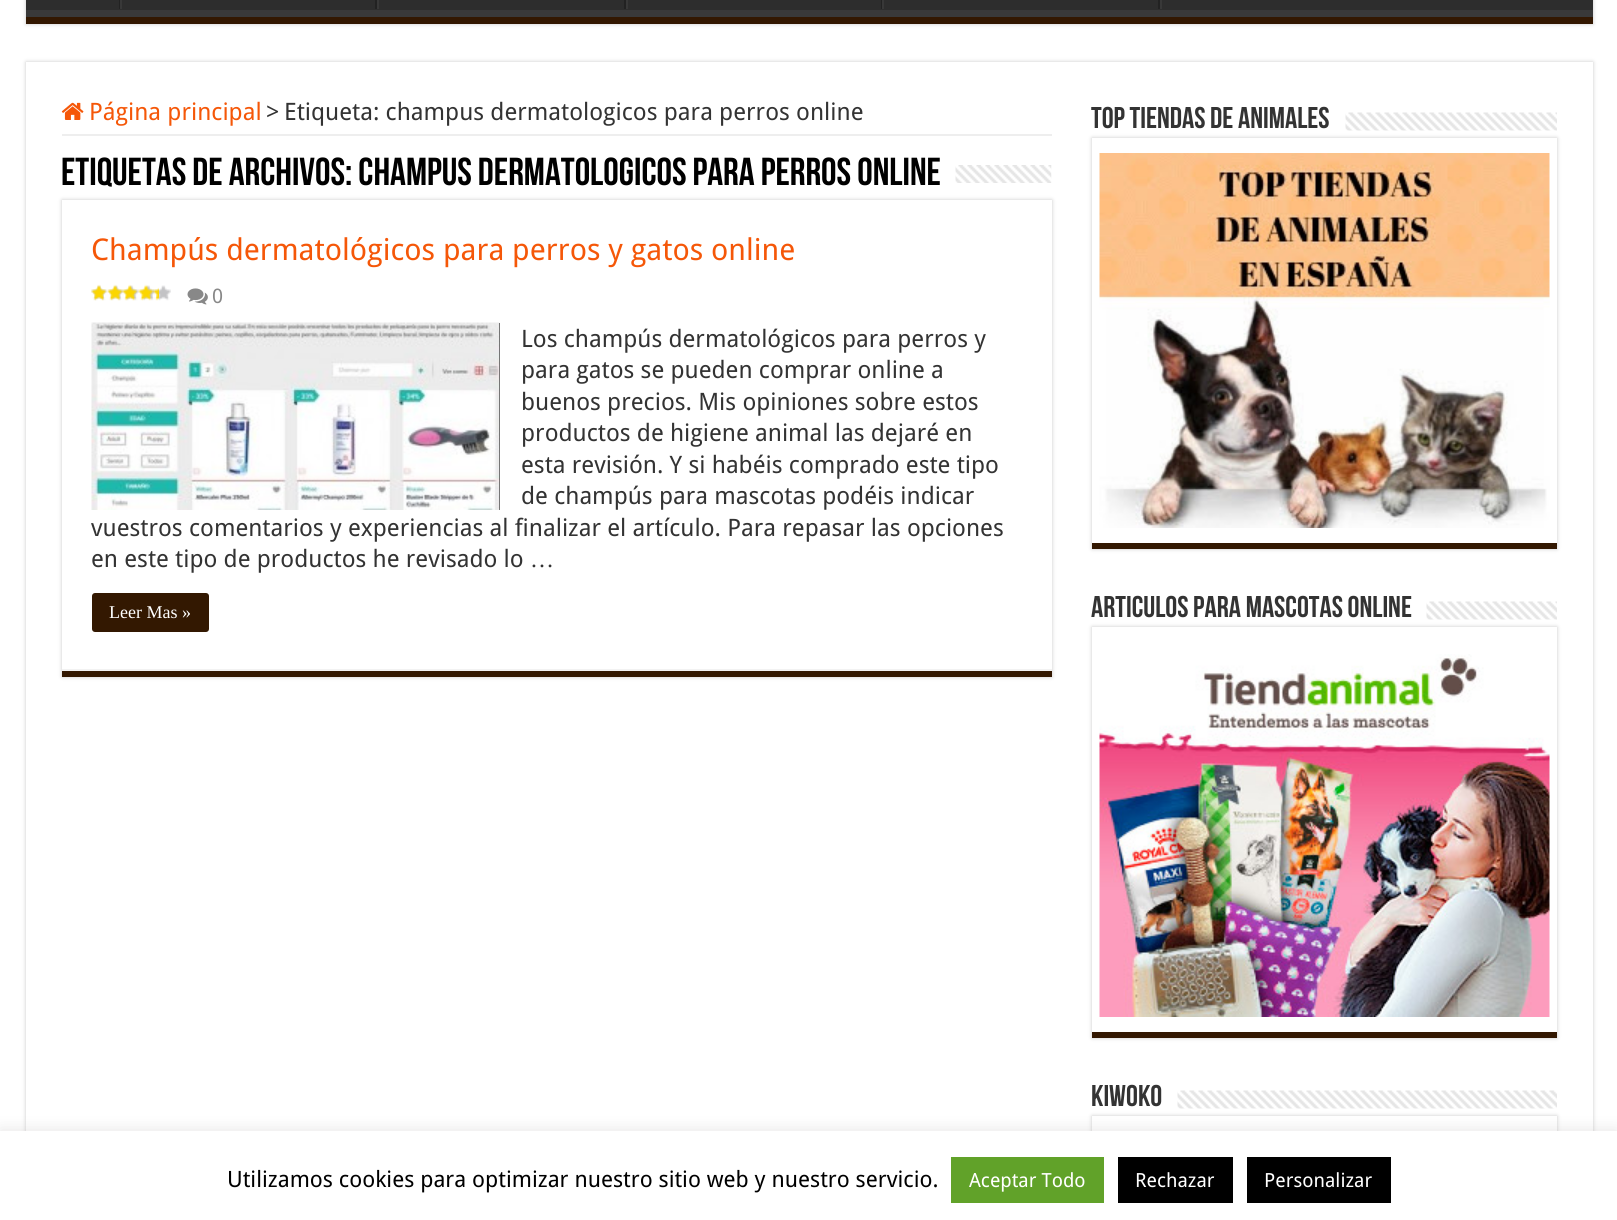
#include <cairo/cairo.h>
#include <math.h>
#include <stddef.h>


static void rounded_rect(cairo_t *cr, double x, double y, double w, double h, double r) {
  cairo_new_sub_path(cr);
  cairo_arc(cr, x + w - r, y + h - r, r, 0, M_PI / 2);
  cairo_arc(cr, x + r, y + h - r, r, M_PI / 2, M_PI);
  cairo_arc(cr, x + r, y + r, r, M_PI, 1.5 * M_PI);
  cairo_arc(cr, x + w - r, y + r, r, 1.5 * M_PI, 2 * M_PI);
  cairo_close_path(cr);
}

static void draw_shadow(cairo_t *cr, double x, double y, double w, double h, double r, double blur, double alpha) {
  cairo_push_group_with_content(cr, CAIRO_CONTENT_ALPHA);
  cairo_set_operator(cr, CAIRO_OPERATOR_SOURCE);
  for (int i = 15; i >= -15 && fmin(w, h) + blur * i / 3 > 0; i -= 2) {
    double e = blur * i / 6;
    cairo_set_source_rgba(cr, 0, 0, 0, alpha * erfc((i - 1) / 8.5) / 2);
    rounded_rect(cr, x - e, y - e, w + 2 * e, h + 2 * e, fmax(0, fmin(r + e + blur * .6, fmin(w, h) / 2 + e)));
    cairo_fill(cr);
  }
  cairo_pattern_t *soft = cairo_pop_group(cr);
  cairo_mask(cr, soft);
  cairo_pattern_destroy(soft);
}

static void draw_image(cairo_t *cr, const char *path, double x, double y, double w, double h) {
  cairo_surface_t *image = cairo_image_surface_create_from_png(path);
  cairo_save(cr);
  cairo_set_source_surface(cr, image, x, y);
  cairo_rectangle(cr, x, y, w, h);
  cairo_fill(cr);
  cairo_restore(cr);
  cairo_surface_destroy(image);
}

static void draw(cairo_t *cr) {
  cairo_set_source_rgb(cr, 1, 1, 1);
  cairo_paint(cr);
  cairo_set_source_rgb(cr, 202 / 255.0, 202 / 255.0, 202 / 255.0);
  draw_shadow(cr, 26, -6, 1567, 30, 0, 2, 1);
  cairo_set_source_rgb(cr, 45 / 255.0, 45 / 255.0, 45 / 255.0);
  cairo_rectangle(cr, 26, 0, 1567, 10);
  cairo_fill(cr);
  cairo_save(cr);
  cairo_rectangle(cr, 26, 0, 1567, 17);
  cairo_clip(cr);
  cairo_set_source_rgb(cr, 57 / 255.0, 57 / 255.0, 57 / 255.0);
  cairo_set_fill_rule(cr, CAIRO_FILL_RULE_EVEN_ODD);
  cairo_new_path(cr);
  cairo_move_to(cr, -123, -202);
  cairo_line_to(cr, 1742, -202);
  cairo_line_to(cr, 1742, 165);
  cairo_line_to(cr, -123, 165);
  cairo_close_path(cr);
  cairo_move_to(cr, 24, -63);
  cairo_line_to(cr, 1592, -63);
  cairo_curve_to(cr, 1592, -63, 1593, -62, 1593, -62);
  cairo_line_to(cr, 1593, 9);
  cairo_curve_to(cr, 1593, 10, 1592, 10, 1592, 10);
  cairo_line_to(cr, 24, 10);
  cairo_curve_to(cr, 23, 10, 22, 10, 22, 9);
  cairo_line_to(cr, 22, -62);
  cairo_curve_to(cr, 22, -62, 23, -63, 24, -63);
  cairo_close_path(cr);
  cairo_fill(cr);
  cairo_restore(cr);
  cairo_set_source_rgb(cr, 51 / 255.0, 24 / 255.0, 1 / 255.0);
  cairo_rectangle(cr, 26, 17, 1567, 7);
  cairo_fill(cr);
  cairo_set_source_rgb(cr, 34 / 255.0, 34 / 255.0, 34 / 255.0);
  cairo_rectangle(cr, 119, 0, 1, 9);
  cairo_fill(cr);
  cairo_set_source_rgb(cr, 56 / 255.0, 56 / 255.0, 56 / 255.0);
  cairo_rectangle(cr, 120, 0, 2, 9);
  cairo_fill(cr);
  cairo_set_source_rgb(cr, 34 / 255.0, 34 / 255.0, 34 / 255.0);
  cairo_rectangle(cr, 375, 0, 2, 9);
  cairo_fill(cr);
  cairo_set_source_rgb(cr, 56 / 255.0, 56 / 255.0, 56 / 255.0);
  cairo_rectangle(cr, 377, 0, 2, 9);
  cairo_fill(cr);
  cairo_set_source_rgb(cr, 34 / 255.0, 34 / 255.0, 34 / 255.0);
  cairo_rectangle(cr, 624, 0, 2, 9);
  cairo_fill(cr);
  cairo_set_source_rgb(cr, 56 / 255.0, 56 / 255.0, 56 / 255.0);
  cairo_rectangle(cr, 626, 0, 2, 9);
  cairo_fill(cr);
  cairo_set_source_rgb(cr, 34 / 255.0, 34 / 255.0, 34 / 255.0);
  cairo_rectangle(cr, 881, 0, 1, 9);
  cairo_fill(cr);
  cairo_set_source_rgb(cr, 56 / 255.0, 56 / 255.0, 56 / 255.0);
  cairo_rectangle(cr, 882, 0, 2, 9);
  cairo_fill(cr);
  cairo_set_source_rgb(cr, 34 / 255.0, 34 / 255.0, 34 / 255.0);
  cairo_rectangle(cr, 1158, 0, 2, 9);
  cairo_fill(cr);
  cairo_set_source_rgb(cr, 56 / 255.0, 56 / 255.0, 56 / 255.0);
  cairo_rectangle(cr, 1160, 0, 2, 9);
  cairo_fill(cr);
  cairo_save(cr);
  cairo_set_fill_rule(cr, CAIRO_FILL_RULE_EVEN_ODD);
  cairo_new_path(cr);
  cairo_move_to(cr, 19, 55);
  cairo_line_to(cr, 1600, 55);
  cairo_line_to(cr, 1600, 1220);
  cairo_line_to(cr, 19, 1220);
  cairo_close_path(cr);
  cairo_move_to(cr, 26, 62);
  cairo_line_to(cr, 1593, 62);
  cairo_line_to(cr, 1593, 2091);
  cairo_line_to(cr, 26, 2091);
  cairo_close_path(cr);
  cairo_clip(cr);
  cairo_set_source_rgb(cr, 202 / 255.0, 202 / 255.0, 202 / 255.0);
  draw_shadow(cr, 26, 62, 1567, 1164, 0, 2, 1);
  cairo_restore(cr);
  cairo_set_source_rgb(cr, 238 / 255.0, 238 / 255.0, 238 / 255.0);
  cairo_rectangle(cr, 62, 134, 990, 2);
  cairo_fill(cr);
  draw_image(cr, "images/1.png", 61, 102, 23, 18);
  draw_image(cr, "images/2.png", 955, 165, 97, 18);
  cairo_set_source_rgb(cr, 202 / 255.0, 202 / 255.0, 202 / 255.0);
  draw_shadow(cr, 62, 200, 990, 477, 0, 2, 1);
  cairo_set_source_rgb(cr, 1, 1, 1);
  cairo_rectangle(cr, 62, 200, 990, 469);
  cairo_fill(cr);
  cairo_set_source_rgb(cr, 51 / 255.0, 24 / 255.0, 1 / 255.0);
  cairo_rectangle(cr, 62, 671, 990, 6);
  cairo_fill(cr);
  cairo_set_source_rgb(cr, 242 / 255.0, 242 / 255.0, 242 / 255.0);
  cairo_rectangle(cr, 62, 669, 990, 2);
  cairo_fill(cr);
  draw_image(cr, "images/3.png", 91, 285, 80, 16);
  draw_image(cr, "images/4.png", 91, 284, 68, 17);
  draw_image(cr, "images/5.png", 187, 288, 21, 17);
  cairo_set_source_rgb(cr, 0, 0, 0);
  cairo_rectangle(cr, 499, 323, 1, 187);
  cairo_fill(cr);
  draw_image(cr, "images/6.png", 91, 322, 409, 188);
  cairo_set_source_rgb(cr, 51 / 255.0, 24 / 255.0, 1 / 255.0);
  rounded_rect(cr, 92, 593, 117, 39, 3);
  cairo_fill(cr);
  draw_image(cr, "images/7.png", 1345, 112, 212, 19);
  cairo_save(cr);
  cairo_set_fill_rule(cr, CAIRO_FILL_RULE_EVEN_ODD);
  cairo_new_path(cr);
  cairo_move_to(cr, 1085, 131);
  cairo_line_to(cr, 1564, 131);
  cairo_line_to(cr, 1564, 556);
  cairo_line_to(cr, 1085, 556);
  cairo_close_path(cr);
  cairo_move_to(cr, 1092, 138);
  cairo_line_to(cr, 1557, 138);
  cairo_line_to(cr, 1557, 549);
  cairo_line_to(cr, 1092, 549);
  cairo_close_path(cr);
  cairo_clip(cr);
  cairo_set_source_rgb(cr, 202 / 255.0, 202 / 255.0, 202 / 255.0);
  draw_shadow(cr, 1092, 138, 465, 411, 0, 2, 1);
  cairo_restore(cr);
  cairo_rectangle(cr, 1092, 543, 465, 6);
  cairo_fill(cr);
  draw_image(cr, "images/8.png", 1099, 153, 451, 375);
  draw_image(cr, "images/9.png", 1426, 601, 131, 19);
  cairo_save(cr);
  cairo_set_fill_rule(cr, CAIRO_FILL_RULE_EVEN_ODD);
  cairo_new_path(cr);
  cairo_move_to(cr, 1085, 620);
  cairo_line_to(cr, 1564, 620);
  cairo_line_to(cr, 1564, 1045);
  cairo_line_to(cr, 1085, 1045);
  cairo_close_path(cr);
  cairo_move_to(cr, 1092, 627);
  cairo_line_to(cr, 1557, 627);
  cairo_line_to(cr, 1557, 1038);
  cairo_line_to(cr, 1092, 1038);
  cairo_close_path(cr);
  cairo_clip(cr);
  cairo_set_source_rgb(cr, 202 / 255.0, 202 / 255.0, 202 / 255.0);
  draw_shadow(cr, 1092, 627, 465, 411, 0, 2, 1);
  cairo_restore(cr);
  cairo_rectangle(cr, 1092, 1032, 465, 6);
  cairo_fill(cr);
  draw_image(cr, "images/10.png", 1099, 654, 451, 363);
  draw_image(cr, "images/11.png", 1177, 1090, 380, 19);
  cairo_save(cr);
  cairo_set_fill_rule(cr, CAIRO_FILL_RULE_EVEN_ODD);
  cairo_new_path(cr);
  cairo_move_to(cr, 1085, 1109);
  cairo_line_to(cr, 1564, 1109);
  cairo_line_to(cr, 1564, 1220);
  cairo_line_to(cr, 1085, 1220);
  cairo_close_path(cr);
  cairo_move_to(cr, 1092, 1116);
  cairo_line_to(cr, 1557, 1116);
  cairo_line_to(cr, 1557, 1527);
  cairo_line_to(cr, 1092, 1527);
  cairo_close_path(cr);
  cairo_clip(cr);
  cairo_set_source_rgb(cr, 202 / 255.0, 202 / 255.0, 202 / 255.0);
  draw_shadow(cr, 1092, 1116, 465, 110, 0, 2, 1);
  cairo_restore(cr);
  cairo_set_source_rgb(cr, 172 / 255.0, 171 / 255.0, 171 / 255.0);
  draw_shadow(cr, 0, 1130, 1617, 90, 0, 7.5, 0.3);
  cairo_set_source_rgb(cr, 1, 1, 1);
  cairo_rectangle(cr, 0, 1131, 1617, 89);
  cairo_fill(cr);
  cairo_set_source_rgb(cr, 97 / 255.0, 162 / 255.0, 41 / 255.0);
  cairo_rectangle(cr, 951, 1157, 153, 46);
  cairo_fill(cr);
  cairo_set_source_rgb(cr, 0, 0, 0);
  cairo_rectangle(cr, 1118, 1157, 115, 46);
  cairo_fill(cr);
  cairo_rectangle(cr, 1247, 1157, 144, 46);
  cairo_fill(cr);
  cairo_select_font_face(cr, "Droid Sans", CAIRO_FONT_SLANT_NORMAL, CAIRO_FONT_WEIGHT_NORMAL);
  cairo_set_font_size(cr, 24);
  cairo_set_source_rgb(cr, 245 / 255.0, 87 / 255.0, 8 / 255.0);
  cairo_move_to(cr, 89, 120);
  cairo_show_text(cr, "Página principal");
  cairo_set_source_rgb(cr, 51 / 255.0, 51 / 255.0, 51 / 255.0);
  cairo_move_to(cr, 266, 120);
  cairo_show_text(cr, ">");
  cairo_move_to(cr, 284, 120);
  cairo_show_text(cr, "Etiqueta: champus dermatologicos para perros online");
  cairo_select_font_face(cr, "Bebas Neue", CAIRO_FONT_SLANT_NORMAL, CAIRO_FONT_WEIGHT_BOLD);
  cairo_set_font_size(cr, 39);
  cairo_set_source_rgb(cr, 0, 0, 0);
  cairo_move_to(cr, 61, 185);
  cairo_show_text(cr, "Etiquetas de archivos: champus dermatologicos para perros online");
  cairo_select_font_face(cr, "Droid Sans", CAIRO_FONT_SLANT_NORMAL, CAIRO_FONT_WEIGHT_NORMAL);
  cairo_set_font_size(cr, 30);
  cairo_set_source_rgb(cr, 245 / 255.0, 87 / 255.0, 8 / 255.0);
  cairo_move_to(cr, 91, 260);
  cairo_show_text(cr, "Champús dermatológicos para perros y gatos online");
  cairo_set_font_size(cr, 20);
  cairo_set_source_rgb(cr, 136 / 255.0, 136 / 255.0, 136 / 255.0);
  cairo_move_to(cr, 212, 303);
  cairo_show_text(cr, "0");
  cairo_set_font_size(cr, 24);
  cairo_set_source_rgb(cr, 51 / 255.0, 51 / 255.0, 51 / 255.0);
  cairo_move_to(cr, 521, 347);
  cairo_show_text(cr, "Los champús dermatológicos para perros y");
  cairo_move_to(cr, 521, 378);
  cairo_show_text(cr, "para gatos se pueden comprar online a");
  cairo_move_to(cr, 521, 410);
  cairo_show_text(cr, "buenos precios. Mis opiniones sobre estos");
  cairo_move_to(cr, 521, 441);
  cairo_show_text(cr, "productos de higiene animal las dejaré en");
  cairo_move_to(cr, 521, 473);
  cairo_show_text(cr, "esta revisión. Y si habéis comprado este tipo");
  cairo_move_to(cr, 521, 504);
  cairo_show_text(cr, "de champús para mascotas podéis indicar");
  cairo_move_to(cr, 91, 536);
  cairo_show_text(cr, "vuestros comentarios y experiencias al finalizar el artículo. Para repasar las opciones");
  cairo_move_to(cr, 91, 567);
  cairo_show_text(cr, "en este tipo de productos he revisado lo");
  cairo_select_font_face(cr, "Liberation Serif", CAIRO_FONT_SLANT_NORMAL, CAIRO_FONT_WEIGHT_NORMAL);
  cairo_move_to(cr, 530, 567);
  cairo_show_text(cr, "…");
  cairo_set_font_size(cr, 18);
  cairo_set_source_rgb(cr, 1, 1, 1);
  cairo_move_to(cr, 109, 618);
  cairo_show_text(cr, "Leer Mas »");
  cairo_select_font_face(cr, "Bebas Neue", CAIRO_FONT_SLANT_NORMAL, CAIRO_FONT_WEIGHT_BOLD);
  cairo_set_font_size(cr, 30);
  cairo_set_source_rgb(cr, 51 / 255.0, 51 / 255.0, 51 / 255.0);
  cairo_move_to(cr, 1091, 128);
  cairo_show_text(cr, "Top Tiendas de Animales");
  cairo_move_to(cr, 1091, 617);
  cairo_show_text(cr, "ARTICULOS PARA MASCOTAS ONLINE");
  cairo_move_to(cr, 1091, 1106);
  cairo_show_text(cr, "KIWOKO");
  cairo_select_font_face(cr, "Droid Sans", CAIRO_FONT_SLANT_NORMAL, CAIRO_FONT_WEIGHT_NORMAL);
  cairo_set_font_size(cr, 22.5);
  cairo_set_source_rgb(cr, 0, 0, 0);
  cairo_move_to(cr, 227, 1187);
  cairo_show_text(cr, "Utilizamos cookies para optimizar nuestro sitio web y nuestro servicio.");
  cairo_set_font_size(cr, 19.5);
  cairo_set_source_rgb(cr, 1, 1, 1);
  cairo_move_to(cr, 969, 1187);
  cairo_show_text(cr, "Aceptar Todo");
  cairo_move_to(cr, 1135, 1187);
  cairo_show_text(cr, "Rechazar");
  cairo_move_to(cr, 1264, 1187);
  cairo_show_text(cr, "Personalizar");
}

int main(void) {
  cairo_surface_t *surface = cairo_image_surface_create(CAIRO_FORMAT_RGB24, 1617, 1220);
  cairo_t *cr = cairo_create(surface);
  cairo_font_options_t *options = cairo_font_options_create();
  cairo_font_options_set_hint_metrics(options, CAIRO_HINT_METRICS_OFF);
  cairo_font_options_set_hint_style(options, CAIRO_HINT_STYLE_NONE);
  cairo_set_font_options(cr, options);
  cairo_set_miter_limit(cr, 4);
  draw(cr);
  cairo_surface_write_to_png(surface, "out.png");
  cairo_font_options_destroy(options);
  cairo_destroy(cr);
  cairo_surface_destroy(surface);
  return 0;
}
